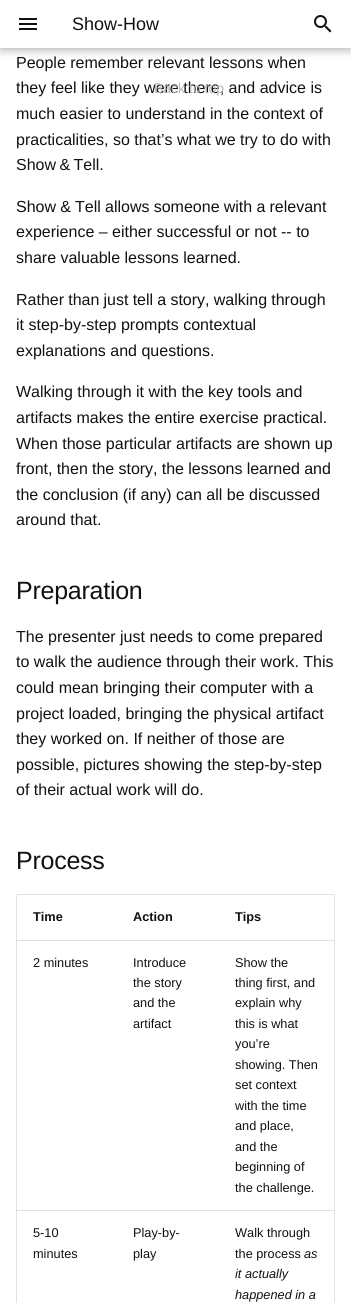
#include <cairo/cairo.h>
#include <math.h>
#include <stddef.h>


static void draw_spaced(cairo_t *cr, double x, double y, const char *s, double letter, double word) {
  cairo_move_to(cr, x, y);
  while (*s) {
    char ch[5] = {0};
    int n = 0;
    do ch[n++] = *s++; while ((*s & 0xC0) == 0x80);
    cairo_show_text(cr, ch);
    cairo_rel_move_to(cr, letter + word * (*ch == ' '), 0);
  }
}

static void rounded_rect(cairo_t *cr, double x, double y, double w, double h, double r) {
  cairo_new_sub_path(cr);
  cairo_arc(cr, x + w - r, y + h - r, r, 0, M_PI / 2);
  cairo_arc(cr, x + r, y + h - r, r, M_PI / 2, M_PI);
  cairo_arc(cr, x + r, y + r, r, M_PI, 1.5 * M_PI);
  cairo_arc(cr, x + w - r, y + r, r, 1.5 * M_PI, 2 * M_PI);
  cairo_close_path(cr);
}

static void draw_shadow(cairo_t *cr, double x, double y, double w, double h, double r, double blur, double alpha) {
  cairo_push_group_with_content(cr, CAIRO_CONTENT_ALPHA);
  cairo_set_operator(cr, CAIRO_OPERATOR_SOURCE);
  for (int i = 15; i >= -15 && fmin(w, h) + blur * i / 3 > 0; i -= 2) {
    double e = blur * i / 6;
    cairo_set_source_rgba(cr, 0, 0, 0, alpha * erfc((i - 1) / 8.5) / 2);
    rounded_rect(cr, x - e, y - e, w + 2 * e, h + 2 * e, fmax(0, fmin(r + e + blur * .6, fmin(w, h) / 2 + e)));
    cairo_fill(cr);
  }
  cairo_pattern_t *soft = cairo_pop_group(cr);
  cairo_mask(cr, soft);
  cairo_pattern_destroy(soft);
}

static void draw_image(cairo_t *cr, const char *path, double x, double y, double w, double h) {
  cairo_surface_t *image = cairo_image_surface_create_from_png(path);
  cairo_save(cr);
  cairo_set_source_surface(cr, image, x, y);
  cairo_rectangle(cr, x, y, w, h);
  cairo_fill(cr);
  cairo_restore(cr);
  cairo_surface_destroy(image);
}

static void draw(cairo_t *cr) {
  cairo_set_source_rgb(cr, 1, 1, 1);
  cairo_paint(cr);
  cairo_set_source_rgb(cr, 0, 0, 0);
  draw_shadow(cr, 0, 4, 351, 48, 0, 4, 0.2);
  draw_shadow(cr, 0, 0, 351, 48, 0, 2, 0.1);
  cairo_set_source_rgb(cr, 1, 1, 1);
  cairo_rectangle(cr, 0, 0, 351, 48);
  cairo_fill(cr);
  draw_image(cr, "images/1.png", 19, 18, 18, 12);
  draw_image(cr, "images/2.png", 314, 15, 18, 18);
  rounded_rect(cr, 16.5, 894.5, 318, 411, 1.5);
  cairo_set_source_rgb(cr, 224 / 255.0, 224 / 255.0, 224 / 255.0);
  cairo_set_line_width(cr, 1);
  cairo_stroke(cr);
  cairo_rectangle(cr, 17, 940, 317, 1);
  cairo_fill(cr);
  cairo_rectangle(cr, 17, 1210, 317, 1);
  cairo_fill(cr);
  cairo_select_font_face(cr, "Liberation Sans", CAIRO_FONT_SLANT_NORMAL, CAIRO_FONT_WEIGHT_NORMAL);
  cairo_set_font_size(cr, 18);
  cairo_set_source_rgb(cr, 17 / 255.0, 17 / 255.0, 17 / 255.0);
  cairo_move_to(cr, 72, 30);
  cairo_show_text(cr, "Show-How");
  cairo_set_font_size(cr, 16);
  cairo_move_to(cr, 16, 68);
  cairo_show_text(cr, "People remember relevant lessons when");
  cairo_move_to(cr, 16, 93);
  cairo_show_text(cr, "they feel like they were there, and advice is");
  cairo_move_to(cr, 16, 119);
  cairo_show_text(cr, "much easier to understand in the context of");
  cairo_move_to(cr, 16, 145);
  cairo_show_text(cr, "practicalities, so that’s what we try to do with");
  draw_spaced(cr, 16, 170, "Show & Tell.", 0, -1);
  draw_spaced(cr, 16, 212, "Show & Tell allows someone with a relevant", 0, -0.25);
  cairo_move_to(cr, 16, 237);
  cairo_show_text(cr, "experience – either successful or not -- to");
  cairo_move_to(cr, 16, 263);
  cairo_show_text(cr, "share valuable lessons learned.");
  draw_spaced(cr, 16, 305, "Rather than just tell a story, walking through", 0, -0.25);
  cairo_move_to(cr, 16, 330);
  cairo_show_text(cr, "it step-by-step prompts contextual");
  cairo_move_to(cr, 16, 356);
  cairo_show_text(cr, "explanations and questions.");
  cairo_move_to(cr, 16, 397);
  cairo_show_text(cr, "Walking through it with the key tools and");
  cairo_move_to(cr, 16, 423);
  cairo_show_text(cr, "artifacts makes the entire exercise practical.");
  cairo_move_to(cr, 16, 449);
  cairo_show_text(cr, "When those particular artifacts are shown up");
  draw_spaced(cr, 16, 474, "front, then the story, the lessons learned and", 0, -0.25);
  cairo_move_to(cr, 16, 500);
  cairo_show_text(cr, "the conclusion (if any) can all be discussed");
  cairo_move_to(cr, 16, 525);
  cairo_show_text(cr, "around that.");
  cairo_set_font_size(cr, 25);
  draw_spaced(cr, 16, 599, "Preparation", -0.25, 0);
  cairo_set_font_size(cr, 16);
  cairo_move_to(cr, 16, 642);
  cairo_show_text(cr, "The presenter just needs to come prepared");
  cairo_move_to(cr, 16, 667);
  cairo_show_text(cr, "to walk the audience through their work. This");
  cairo_move_to(cr, 16, 693);
  cairo_show_text(cr, "could mean bringing their computer with a");
  cairo_move_to(cr, 16, 719);
  cairo_show_text(cr, "project loaded, bringing the physical artifact");
  cairo_move_to(cr, 16, 744);
  cairo_show_text(cr, "they worked on. If neither of those are");
  cairo_move_to(cr, 16, 770);
  cairo_show_text(cr, "possible, pictures showing the step-by-step");
  cairo_move_to(cr, 16, 795);
  cairo_show_text(cr, "of their actual work will do.");
  cairo_set_font_size(cr, 25);
  draw_spaced(cr, 16, 869, "Process", -0.25, 0);
  cairo_select_font_face(cr, "Liberation Sans", CAIRO_FONT_SLANT_NORMAL, CAIRO_FONT_WEIGHT_BOLD);
  cairo_set_font_size(cr, 12.75);
  cairo_move_to(cr, 33, 921);
  cairo_show_text(cr, "Time");
  cairo_move_to(cr, 133, 921);
  cairo_show_text(cr, "Action");
  cairo_move_to(cr, 235, 921);
  cairo_show_text(cr, "Tips");
  cairo_select_font_face(cr, "Liberation Sans", CAIRO_FONT_SLANT_NORMAL, CAIRO_FONT_WEIGHT_NORMAL);
  cairo_move_to(cr, 33, 967);
  cairo_show_text(cr, "2 minutes");
  cairo_move_to(cr, 133, 967);
  cairo_show_text(cr, "Introduce");
  cairo_move_to(cr, 133, 987);
  cairo_show_text(cr, "the story");
  cairo_move_to(cr, 133, 1007);
  cairo_show_text(cr, "and the");
  cairo_move_to(cr, 133, 1028);
  cairo_show_text(cr, "artifact");
  cairo_move_to(cr, 235, 967);
  cairo_show_text(cr, "Show the");
  cairo_move_to(cr, 235, 987);
  cairo_show_text(cr, "thing first, and");
  cairo_move_to(cr, 235, 1007);
  cairo_show_text(cr, "explain why");
  cairo_move_to(cr, 235, 1028);
  cairo_show_text(cr, "this is what");
  cairo_move_to(cr, 235, 1048);
  cairo_show_text(cr, "you’re");
  cairo_move_to(cr, 235, 1069);
  cairo_show_text(cr, "showing. Then");
  cairo_move_to(cr, 235, 1089);
  cairo_show_text(cr, "set context");
  cairo_move_to(cr, 235, 1110);
  cairo_show_text(cr, "with the time");
  cairo_move_to(cr, 235, 1130);
  cairo_show_text(cr, "and place,");
  cairo_move_to(cr, 235, 1151);
  cairo_show_text(cr, "and the");
  cairo_move_to(cr, 235, 1171);
  cairo_show_text(cr, "beginning of");
  cairo_move_to(cr, 235, 1192);
  cairo_show_text(cr, "the challenge.");
  cairo_move_to(cr, 33, 1237);
  cairo_show_text(cr, "5-10");
  cairo_move_to(cr, 33, 1258);
  cairo_show_text(cr, "minutes");
  cairo_move_to(cr, 133, 1237);
  cairo_show_text(cr, "Play-by-");
  cairo_move_to(cr, 133, 1258);
  cairo_show_text(cr, "play");
  cairo_move_to(cr, 235, 1237);
  cairo_show_text(cr, "Walk through");
  cairo_move_to(cr, 235, 1258);
  cairo_show_text(cr, "the process");
  cairo_select_font_face(cr, "Liberation Sans", CAIRO_FONT_SLANT_ITALIC, CAIRO_FONT_WEIGHT_NORMAL);
  cairo_move_to(cr, 304, 1258);
  cairo_show_text(cr, "as");
  cairo_move_to(cr, 235, 1278);
  cairo_show_text(cr, "it actually");
  cairo_move_to(cr, 235, 1299);
  cairo_show_text(cr, "happened in a");
  cairo_select_font_face(cr, "Liberation Sans", CAIRO_FONT_SLANT_NORMAL, CAIRO_FONT_WEIGHT_NORMAL);
  cairo_set_font_size(cr, 14);
  cairo_set_source_rgb(cr, 184 / 255.0, 184 / 255.0, 184 / 255.0);
  cairo_move_to(cr, 154, 93);
  cairo_show_text(cr, "Back to top");
}

int main(void) {
  cairo_surface_t *surface = cairo_image_surface_create(CAIRO_FORMAT_RGB24, 351, 1303);
  cairo_t *cr = cairo_create(surface);
  cairo_font_options_t *options = cairo_font_options_create();
  cairo_font_options_set_hint_metrics(options, CAIRO_HINT_METRICS_OFF);
  cairo_font_options_set_hint_style(options, CAIRO_HINT_STYLE_NONE);
  cairo_set_font_options(cr, options);
  cairo_set_miter_limit(cr, 4);
  draw(cr);
  cairo_surface_write_to_png(surface, "out.png");
  cairo_font_options_destroy(options);
  cairo_destroy(cr);
  cairo_surface_destroy(surface);
  return 0;
}
